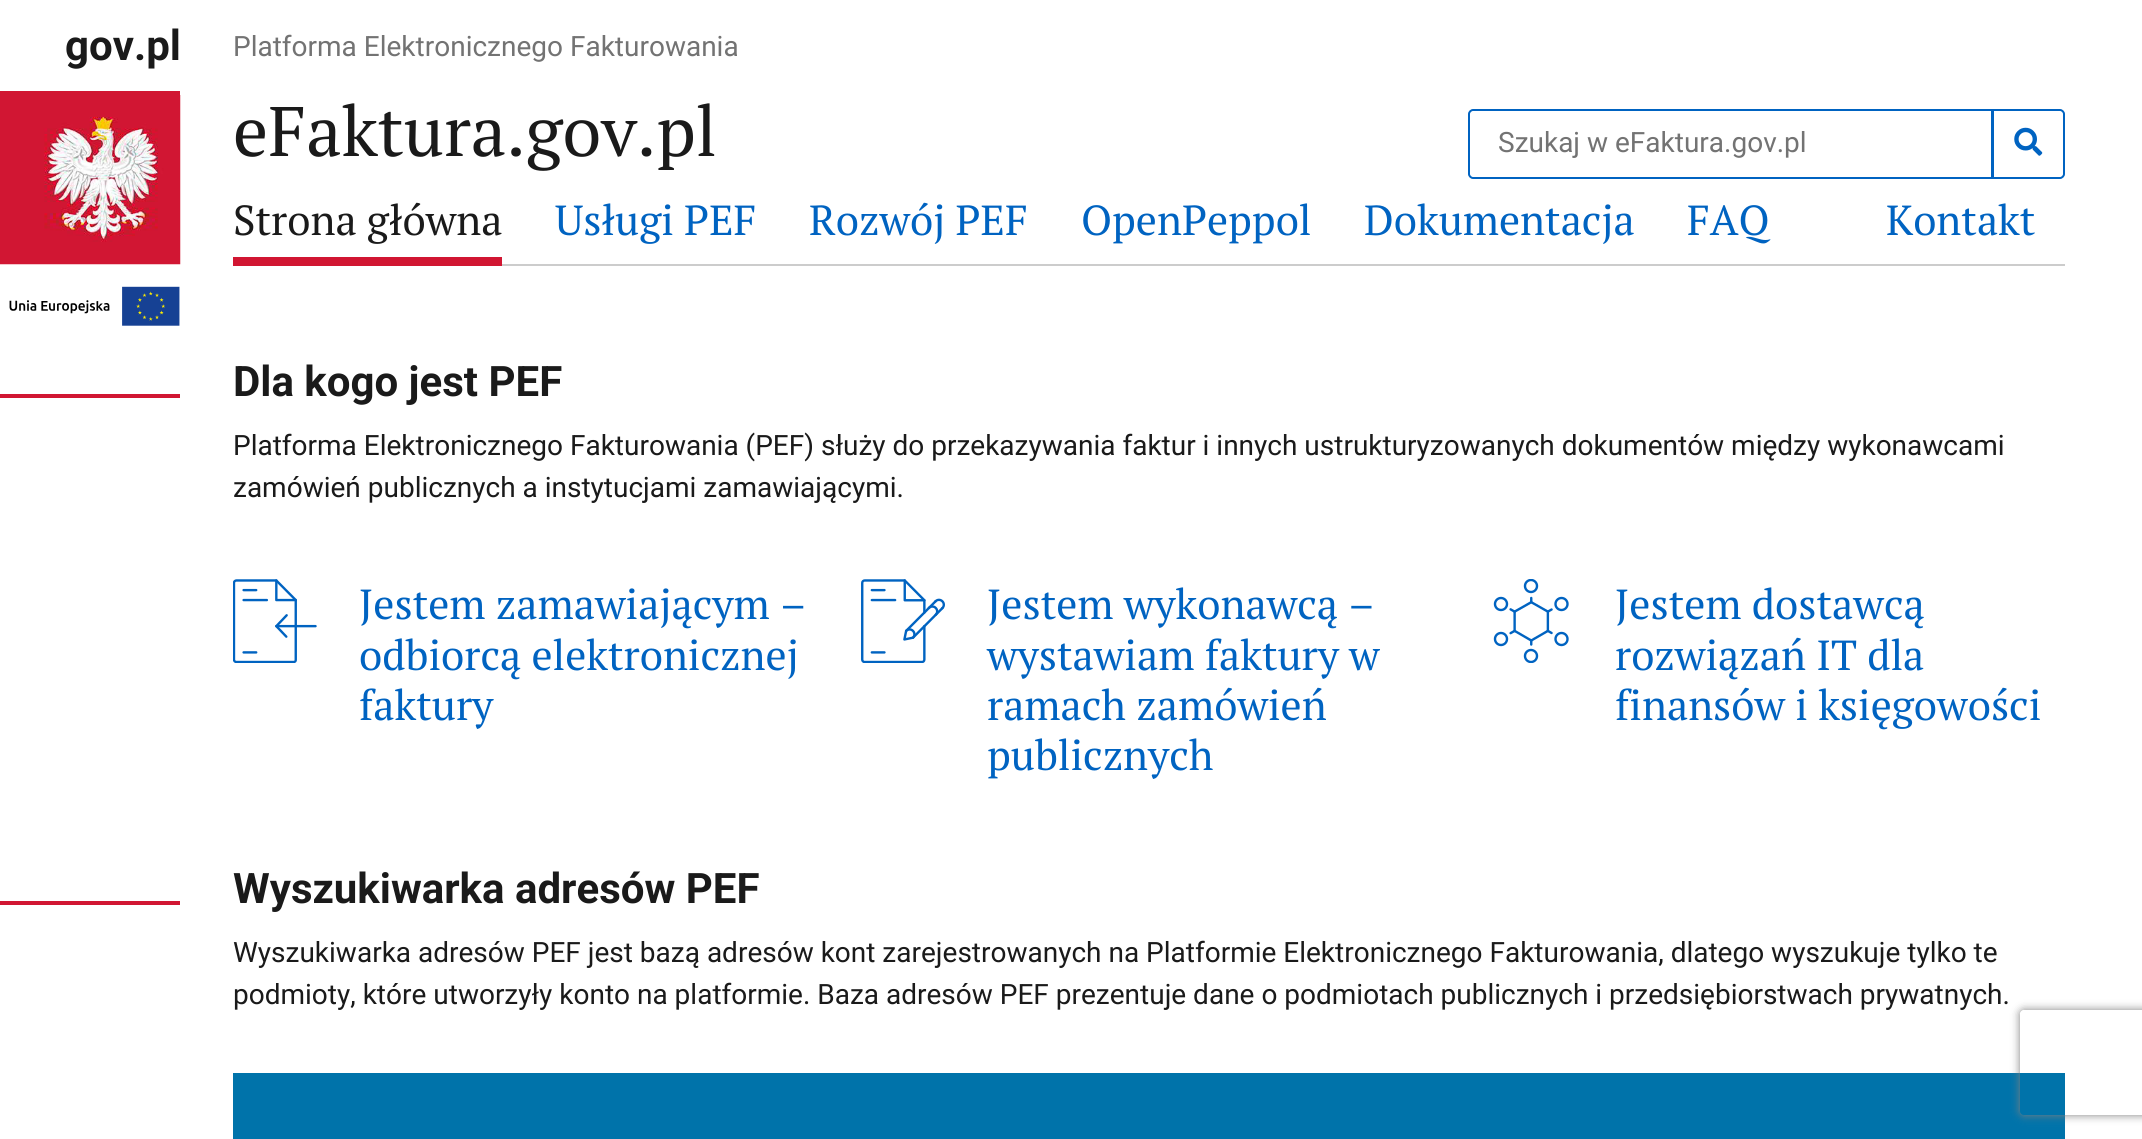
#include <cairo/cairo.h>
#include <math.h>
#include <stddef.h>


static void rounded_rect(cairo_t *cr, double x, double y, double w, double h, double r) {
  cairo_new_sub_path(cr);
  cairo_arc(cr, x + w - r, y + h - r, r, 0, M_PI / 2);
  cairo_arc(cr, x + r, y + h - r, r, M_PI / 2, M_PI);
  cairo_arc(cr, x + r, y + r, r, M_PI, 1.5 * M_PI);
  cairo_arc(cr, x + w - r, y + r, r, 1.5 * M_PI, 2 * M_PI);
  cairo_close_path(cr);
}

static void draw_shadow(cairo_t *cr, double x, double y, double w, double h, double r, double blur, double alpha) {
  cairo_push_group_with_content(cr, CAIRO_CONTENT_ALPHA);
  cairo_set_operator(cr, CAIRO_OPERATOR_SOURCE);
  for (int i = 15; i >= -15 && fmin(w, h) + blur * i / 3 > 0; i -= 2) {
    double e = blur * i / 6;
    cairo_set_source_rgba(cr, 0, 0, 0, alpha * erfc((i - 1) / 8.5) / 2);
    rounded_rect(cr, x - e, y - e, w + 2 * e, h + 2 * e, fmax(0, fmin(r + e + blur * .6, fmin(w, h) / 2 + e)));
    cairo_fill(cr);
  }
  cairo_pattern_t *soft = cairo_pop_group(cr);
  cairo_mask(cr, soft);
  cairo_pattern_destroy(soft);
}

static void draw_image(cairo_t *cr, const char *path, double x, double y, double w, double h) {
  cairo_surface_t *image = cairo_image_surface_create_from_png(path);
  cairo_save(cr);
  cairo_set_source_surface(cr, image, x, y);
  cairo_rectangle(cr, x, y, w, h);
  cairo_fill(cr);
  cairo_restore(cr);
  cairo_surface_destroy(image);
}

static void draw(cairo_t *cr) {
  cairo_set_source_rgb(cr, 1, 1, 1);
  cairo_paint(cr);
  cairo_set_source_rgb(cr, 209 / 255.0, 22 / 255.0, 50 / 255.0);
  cairo_rectangle(cr, 0, 91, 180, 4);
  cairo_fill(cr);
  draw_image(cr, "images/1.png", 0, 95, 181, 170);
  draw_image(cr, "images/2.png", 9, 286, 171, 40);
  cairo_set_source_rgb(cr, 204 / 255.0, 204 / 255.0, 204 / 255.0);
  cairo_rectangle(cr, 502, 264, 1563, 2);
  cairo_fill(cr);
  cairo_new_path(cr);
  cairo_move_to(cr, 1473, 110);
  cairo_line_to(cr, 1992, 110);
  cairo_line_to(cr, 1992, 178);
  cairo_line_to(cr, 1473, 178);
  cairo_curve_to(cr, 1471, 178, 1469, 176, 1469, 174);
  cairo_line_to(cr, 1469, 114);
  cairo_curve_to(cr, 1469, 112, 1471, 110, 1473, 110);
  cairo_close_path(cr);
  cairo_set_source_rgb(cr, 0, 99 / 255.0, 193 / 255.0);
  cairo_stroke(cr);
  cairo_new_path(cr);
  cairo_move_to(cr, 1993, 110);
  cairo_line_to(cr, 2060, 110);
  cairo_curve_to(cr, 2062, 110, 2064, 112, 2064, 114);
  cairo_line_to(cr, 2064, 174);
  cairo_curve_to(cr, 2064, 176, 2062, 178, 2060, 178);
  cairo_line_to(cr, 1993, 178);
  cairo_close_path(cr);
  cairo_stroke(cr);
  draw_image(cr, "images/3.png", 2014, 127, 29, 29);
  cairo_set_source_rgb(cr, 209 / 255.0, 22 / 255.0, 50 / 255.0);
  cairo_rectangle(cr, 233, 257, 269, 9);
  cairo_fill(cr);
  cairo_rectangle(cr, 0, 394, 180, 4);
  cairo_fill(cr);
  draw_image(cr, "images/4.png", 233, 579, 84, 84);
  draw_image(cr, "images/5.png", 861, 579, 84, 84);
  draw_image(cr, "images/6.png", 1493, 579, 76, 84);
  cairo_rectangle(cr, 0, 901, 180, 4);
  cairo_fill(cr);
  cairo_set_source_rgb(cr, 0, 115 / 255.0, 170 / 255.0);
  cairo_rectangle(cr, 233, 1073, 1832, 66);
  cairo_fill(cr);
  cairo_save(cr);
  cairo_set_fill_rule(cr, CAIRO_FILL_RULE_EVEN_ODD);
  cairo_new_path(cr);
  cairo_move_to(cr, 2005, 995);
  cairo_line_to(cr, 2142, 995);
  cairo_line_to(cr, 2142, 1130);
  cairo_line_to(cr, 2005, 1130);
  cairo_close_path(cr);
  cairo_move_to(cr, 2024, 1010);
  cairo_line_to(cr, 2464, 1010);
  cairo_curve_to(cr, 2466, 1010, 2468, 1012, 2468, 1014);
  cairo_line_to(cr, 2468, 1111);
  cairo_curve_to(cr, 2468, 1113, 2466, 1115, 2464, 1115);
  cairo_line_to(cr, 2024, 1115);
  cairo_curve_to(cr, 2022, 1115, 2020, 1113, 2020, 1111);
  cairo_line_to(cr, 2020, 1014);
  cairo_curve_to(cr, 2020, 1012, 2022, 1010, 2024, 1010);
  cairo_close_path(cr);
  cairo_clip(cr);
  cairo_set_source_rgb(cr, 128 / 255.0, 128 / 255.0, 128 / 255.0);
  draw_shadow(cr, 2020, 1010, 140, 105, 4, 4.5, 1);
  cairo_restore(cr);
  cairo_select_font_face(cr, "Roboto", CAIRO_FONT_SLANT_NORMAL, CAIRO_FONT_WEIGHT_BOLD);
  cairo_set_font_size(cr, 42);
  cairo_set_source_rgb(cr, 26 / 255.0, 26 / 255.0, 26 / 255.0);
  cairo_move_to(cr, 65, 60);
  cairo_show_text(cr, "gov.pl");
  cairo_select_font_face(cr, "Roboto", CAIRO_FONT_SLANT_NORMAL, CAIRO_FONT_WEIGHT_NORMAL);
  cairo_set_font_size(cr, 28);
  cairo_set_source_rgb(cr, 115 / 255.0, 115 / 255.0, 115 / 255.0);
  cairo_move_to(cr, 233, 56);
  cairo_show_text(cr, "Platforma Elektronicznego Fakturowania");
  cairo_select_font_face(cr, "PT Serif", CAIRO_FONT_SLANT_NORMAL, CAIRO_FONT_WEIGHT_NORMAL);
  cairo_set_font_size(cr, 70);
  cairo_set_source_rgb(cr, 26 / 255.0, 26 / 255.0, 26 / 255.0);
  cairo_move_to(cr, 233, 156);
  cairo_show_text(cr, "eFaktura.gov.pl");
  cairo_select_font_face(cr, "Roboto", CAIRO_FONT_SLANT_NORMAL, CAIRO_FONT_WEIGHT_NORMAL);
  cairo_set_font_size(cr, 28);
  cairo_set_source_rgb(cr, 115 / 255.0, 115 / 255.0, 115 / 255.0);
  cairo_move_to(cr, 1498, 152);
  cairo_show_text(cr, "Szukaj w eFaktura.gov.pl");
  cairo_select_font_face(cr, "PT Serif", CAIRO_FONT_SLANT_NORMAL, CAIRO_FONT_WEIGHT_NORMAL);
  cairo_set_font_size(cr, 42);
  cairo_set_source_rgb(cr, 26 / 255.0, 26 / 255.0, 26 / 255.0);
  cairo_move_to(cr, 233, 235);
  cairo_show_text(cr, "Strona główna");
  cairo_set_source_rgb(cr, 0, 99 / 255.0, 193 / 255.0);
  cairo_move_to(cr, 555, 235);
  cairo_show_text(cr, "Usługi PEF");
  cairo_move_to(cr, 809, 235);
  cairo_show_text(cr, "Rozwój PEF");
  cairo_move_to(cr, 1081, 235);
  cairo_show_text(cr, "OpenPeppol");
  cairo_move_to(cr, 1364, 235);
  cairo_show_text(cr, "Dokumentacja");
  cairo_move_to(cr, 1687, 235);
  cairo_show_text(cr, "FAQ");
  cairo_move_to(cr, 1886, 235);
  cairo_show_text(cr, "Kontakt");
  cairo_select_font_face(cr, "Roboto", CAIRO_FONT_SLANT_NORMAL, CAIRO_FONT_WEIGHT_BOLD);
  cairo_set_source_rgb(cr, 26 / 255.0, 26 / 255.0, 26 / 255.0);
  cairo_move_to(cr, 233, 396);
  cairo_show_text(cr, "Dla kogo jest PEF");
  cairo_select_font_face(cr, "Roboto", CAIRO_FONT_SLANT_NORMAL, CAIRO_FONT_WEIGHT_NORMAL);
  cairo_set_font_size(cr, 28);
  cairo_move_to(cr, 233, 455);
  cairo_show_text(cr, "Platforma Elektronicznego Fakturowania (PEF) służy do przekazywania faktur i innych ustrukturyzowanych dokumentów między wykonawcami");
  cairo_move_to(cr, 233, 497);
  cairo_show_text(cr, "zamówień publicznych a instytucjami zamawiającymi.");
  cairo_select_font_face(cr, "PT Serif", CAIRO_FONT_SLANT_NORMAL, CAIRO_FONT_WEIGHT_NORMAL);
  cairo_set_font_size(cr, 42);
  cairo_set_source_rgb(cr, 0, 99 / 255.0, 193 / 255.0);
  cairo_move_to(cr, 359, 619);
  cairo_show_text(cr, "Jestem zamawiającym –");
  cairo_move_to(cr, 359, 670);
  cairo_show_text(cr, "odbiorcą elektronicznej");
  cairo_move_to(cr, 359, 720);
  cairo_show_text(cr, "faktury");
  cairo_move_to(cr, 987, 619);
  cairo_show_text(cr, "Jestem wykonawcą –");
  cairo_move_to(cr, 987, 670);
  cairo_show_text(cr, "wystawiam faktury w");
  cairo_move_to(cr, 987, 720);
  cairo_show_text(cr, "ramach zamówień");
  cairo_move_to(cr, 987, 770);
  cairo_show_text(cr, "publicznych");
  cairo_move_to(cr, 1615, 619);
  cairo_show_text(cr, "Jestem dostawcą");
  cairo_move_to(cr, 1615, 670);
  cairo_show_text(cr, "rozwiązań IT dla");
  cairo_move_to(cr, 1615, 720);
  cairo_show_text(cr, "finansów i księgowości");
  cairo_select_font_face(cr, "Roboto", CAIRO_FONT_SLANT_NORMAL, CAIRO_FONT_WEIGHT_BOLD);
  cairo_set_source_rgb(cr, 26 / 255.0, 26 / 255.0, 26 / 255.0);
  cairo_move_to(cr, 233, 903);
  cairo_show_text(cr, "Wyszukiwarka adresów PEF");
  cairo_select_font_face(cr, "Roboto", CAIRO_FONT_SLANT_NORMAL, CAIRO_FONT_WEIGHT_NORMAL);
  cairo_set_font_size(cr, 28);
  cairo_move_to(cr, 233, 962);
  cairo_show_text(cr, "Wyszukiwarka adresów PEF jest bazą adresów kont zarejestrowanych na Platformie Elektronicznego Fakturowania, dlatego wyszukuje tylko te");
  cairo_move_to(cr, 233, 1004);
  cairo_show_text(cr, "podmioty, które utworzyły konto na platformie. Baza adresów PEF prezentuje dane o podmiotach publicznych i przedsiębiorstwach prywatnych.");
}

int main(void) {
  cairo_surface_t *surface = cairo_image_surface_create(CAIRO_FORMAT_RGB24, 2142, 1139);
  cairo_t *cr = cairo_create(surface);
  cairo_font_options_t *options = cairo_font_options_create();
  cairo_font_options_set_hint_metrics(options, CAIRO_HINT_METRICS_OFF);
  cairo_font_options_set_hint_style(options, CAIRO_HINT_STYLE_NONE);
  cairo_set_font_options(cr, options);
  cairo_set_miter_limit(cr, 4);
  draw(cr);
  cairo_surface_write_to_png(surface, "out.png");
  cairo_font_options_destroy(options);
  cairo_destroy(cr);
  cairo_surface_destroy(surface);
  return 0;
}
